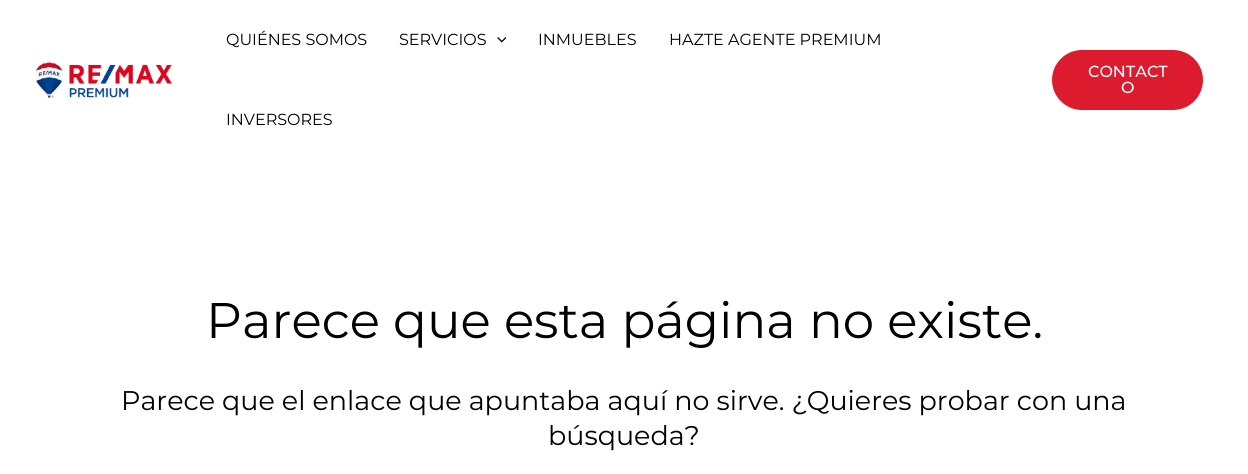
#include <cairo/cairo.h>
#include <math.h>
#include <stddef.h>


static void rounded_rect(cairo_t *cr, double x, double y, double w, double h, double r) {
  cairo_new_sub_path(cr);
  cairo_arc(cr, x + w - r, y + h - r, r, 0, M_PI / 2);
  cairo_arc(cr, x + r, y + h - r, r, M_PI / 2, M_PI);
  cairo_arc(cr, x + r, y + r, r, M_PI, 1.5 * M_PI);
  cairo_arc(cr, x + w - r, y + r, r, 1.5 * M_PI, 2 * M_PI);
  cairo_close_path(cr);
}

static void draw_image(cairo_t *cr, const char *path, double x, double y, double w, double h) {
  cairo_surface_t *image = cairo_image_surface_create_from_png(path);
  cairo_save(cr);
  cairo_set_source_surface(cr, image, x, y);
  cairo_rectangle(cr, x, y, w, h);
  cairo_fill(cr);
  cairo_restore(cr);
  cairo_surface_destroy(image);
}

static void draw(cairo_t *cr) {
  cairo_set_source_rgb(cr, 1, 1, 1);
  cairo_paint(cr);
  draw_image(cr, "images/1.png", 35, 62, 137, 36);
  draw_image(cr, "images/2.png", 497, 37, 9, 6);
  cairo_set_source_rgb(cr, 220 / 255.0, 28 / 255.0, 46 / 255.0);
  rounded_rect(cr, 1052, 50, 151, 60, 30);
  cairo_fill(cr);
  cairo_select_font_face(cr, "Montserrat", CAIRO_FONT_SLANT_NORMAL, CAIRO_FONT_WEIGHT_NORMAL);
  cairo_set_font_size(cr, 16);
  cairo_set_source_rgb(cr, 0, 0, 0);
  cairo_move_to(cr, 226, 45);
  cairo_show_text(cr, "QUIÉNES SOMOS");
  cairo_move_to(cr, 399, 45);
  cairo_show_text(cr, "SERVICIOS");
  cairo_move_to(cr, 538, 45);
  cairo_show_text(cr, "INMUEBLES");
  cairo_move_to(cr, 669, 45);
  cairo_show_text(cr, "HAZTE AGENTE PREMIUM");
  cairo_move_to(cr, 226, 125);
  cairo_show_text(cr, "INVERSORES");
  cairo_select_font_face(cr, "Montserrat Medium", CAIRO_FONT_SLANT_NORMAL, CAIRO_FONT_WEIGHT_NORMAL);
  cairo_set_source_rgb(cr, 1, 1, 1);
  cairo_move_to(cr, 1088, 77);
  cairo_show_text(cr, "CONTACT");
  cairo_move_to(cr, 1121, 93);
  cairo_show_text(cr, "O");
  cairo_select_font_face(cr, "Montserrat", CAIRO_FONT_SLANT_NORMAL, CAIRO_FONT_WEIGHT_NORMAL);
  cairo_set_font_size(cr, 50);
  cairo_set_source_rgb(cr, 0, 0, 0);
  cairo_move_to(cr, 206, 338);
  cairo_show_text(cr, "Parece que esta página no existe.");
  cairo_set_font_size(cr, 27);
  cairo_move_to(cr, 121, 410);
  cairo_show_text(cr, "Parece que el enlace que apuntaba aquí no sirve. ¿Quieres probar con una");
  cairo_move_to(cr, 548, 445);
  cairo_show_text(cr, "búsqueda?");
}

int main(void) {
  cairo_surface_t *surface = cairo_image_surface_create(CAIRO_FORMAT_RGB24, 1248, 474);
  cairo_t *cr = cairo_create(surface);
  cairo_font_options_t *options = cairo_font_options_create();
  cairo_font_options_set_hint_metrics(options, CAIRO_HINT_METRICS_OFF);
  cairo_font_options_set_hint_style(options, CAIRO_HINT_STYLE_NONE);
  cairo_set_font_options(cr, options);
  cairo_set_miter_limit(cr, 4);
  draw(cr);
  cairo_surface_write_to_png(surface, "out.png");
  cairo_font_options_destroy(options);
  cairo_destroy(cr);
  cairo_surface_destroy(surface);
  return 0;
}
